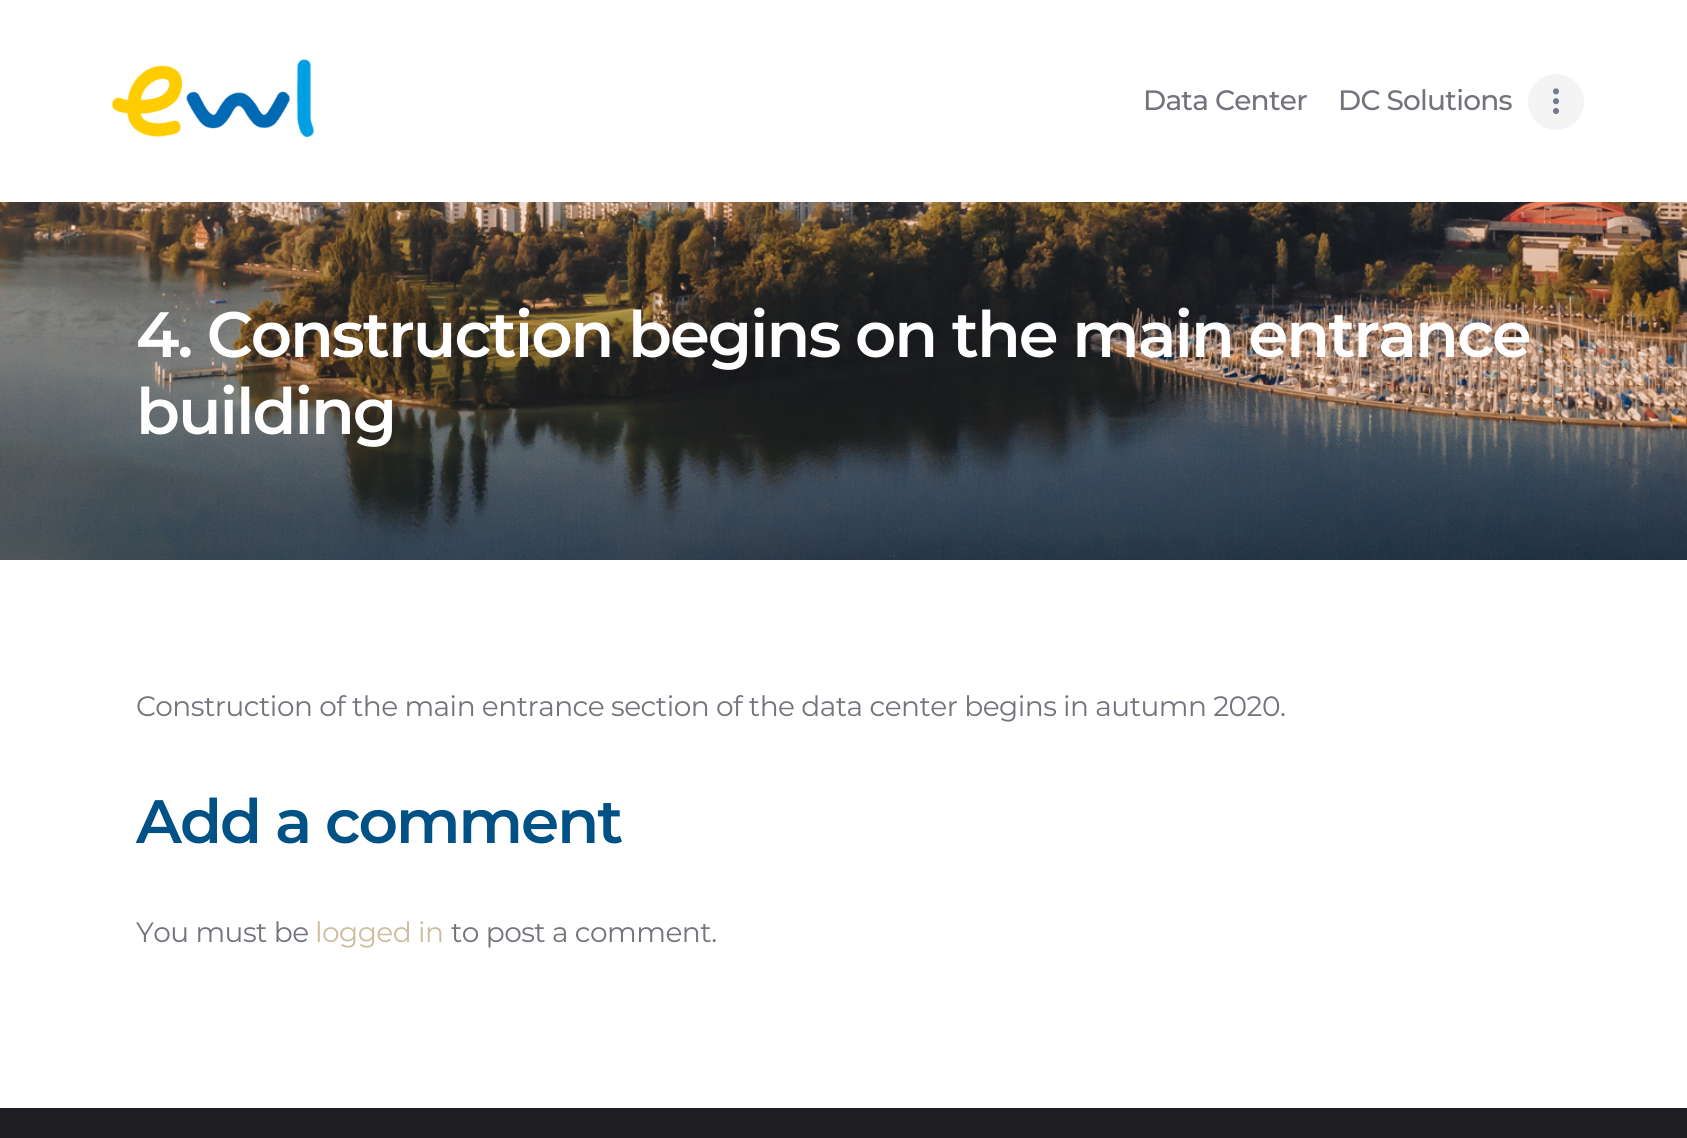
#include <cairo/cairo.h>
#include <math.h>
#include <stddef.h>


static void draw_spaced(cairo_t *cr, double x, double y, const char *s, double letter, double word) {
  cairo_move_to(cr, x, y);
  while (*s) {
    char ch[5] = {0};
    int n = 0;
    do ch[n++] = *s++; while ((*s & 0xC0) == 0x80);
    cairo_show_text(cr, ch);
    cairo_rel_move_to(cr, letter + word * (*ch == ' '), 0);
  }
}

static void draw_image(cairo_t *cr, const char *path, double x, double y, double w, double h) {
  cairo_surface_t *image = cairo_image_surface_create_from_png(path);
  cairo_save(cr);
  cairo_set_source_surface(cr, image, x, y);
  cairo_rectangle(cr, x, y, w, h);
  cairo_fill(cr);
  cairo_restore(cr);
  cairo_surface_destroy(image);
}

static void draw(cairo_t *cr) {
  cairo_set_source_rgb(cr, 1, 1, 1);
  cairo_paint(cr);
  draw_image(cr, "images/1.png", 0, 202, 1687, 358);
  draw_image(cr, "images/2.png", 112, 59, 202, 78);
  cairo_set_source_rgb(cr, 244 / 255.0, 244 / 255.0, 245 / 255.0);
  cairo_arc(cr, 1556, 102, 28, 0, 2 * M_PI);
  cairo_fill(cr);
  draw_image(cr, "images/3.png", 1553, 88, 7, 26);
  cairo_set_source_rgb(cr, 30 / 255.0, 29 / 255.0, 34 / 255.0);
  cairo_rectangle(cr, 0, 1108, 1687, 30);
  cairo_fill(cr);
  cairo_select_font_face(cr, "Montserrat Medium", CAIRO_FONT_SLANT_NORMAL, CAIRO_FONT_WEIGHT_NORMAL);
  cairo_set_font_size(cr, 28);
  cairo_set_source_rgb(cr, 114 / 255.0, 115 / 255.0, 123 / 255.0);
  draw_spaced(cr, 1143, 110, "Data Center", -0.75, 0);
  draw_spaced(cr, 1338, 110, "DC Solutions", -0.75, 0);
  cairo_select_font_face(cr, "Montserrat SemiBold", CAIRO_FONT_SLANT_NORMAL, CAIRO_FONT_WEIGHT_NORMAL);
  cairo_set_font_size(cr, 64);
  cairo_set_source_rgb(cr, 1, 1, 1);
  draw_spaced(cr, 136, 357, "4. Construction begins on the main entrance", -2, 0);
  draw_spaced(cr, 136, 434, "building", -2, 0);
  cairo_select_font_face(cr, "Montserrat", CAIRO_FONT_SLANT_NORMAL, CAIRO_FONT_WEIGHT_NORMAL);
  cairo_set_font_size(cr, 28);
  cairo_set_source_rgb(cr, 114 / 255.0, 115 / 255.0, 123 / 255.0);
  draw_spaced(cr, 136, 716, "Construction of the main entrance section of the data center begins in autumn 2020.", -0.52, 0);
  cairo_select_font_face(cr, "Montserrat SemiBold", CAIRO_FONT_SLANT_NORMAL, CAIRO_FONT_WEIGHT_NORMAL);
  cairo_set_font_size(cr, 61.25);
  cairo_set_source_rgb(cr, 0, 81 / 255.0, 133 / 255.0);
  draw_spaced(cr, 136, 843, "Add a comment", -2, 0);
  cairo_select_font_face(cr, "Montserrat", CAIRO_FONT_SLANT_NORMAL, CAIRO_FONT_WEIGHT_NORMAL);
  cairo_set_font_size(cr, 28);
  cairo_set_source_rgb(cr, 114 / 255.0, 115 / 255.0, 123 / 255.0);
  draw_spaced(cr, 136, 942, "You must be", -0.52, 0);
  cairo_set_source_rgb(cr, 203 / 255.0, 190 / 255.0, 158 / 255.0);
  draw_spaced(cr, 315, 942, "logged in", -0.52, 0);
  cairo_set_source_rgb(cr, 114 / 255.0, 115 / 255.0, 123 / 255.0);
  draw_spaced(cr, 451, 942, "to post a comment.", -0.52, 0);
}

int main(void) {
  cairo_surface_t *surface = cairo_image_surface_create(CAIRO_FORMAT_RGB24, 1687, 1138);
  cairo_t *cr = cairo_create(surface);
  cairo_font_options_t *options = cairo_font_options_create();
  cairo_font_options_set_hint_metrics(options, CAIRO_HINT_METRICS_OFF);
  cairo_font_options_set_hint_style(options, CAIRO_HINT_STYLE_NONE);
  cairo_set_font_options(cr, options);
  cairo_set_miter_limit(cr, 4);
  draw(cr);
  cairo_surface_write_to_png(surface, "out.png");
  cairo_font_options_destroy(options);
  cairo_destroy(cr);
  cairo_surface_destroy(surface);
  return 0;
}
